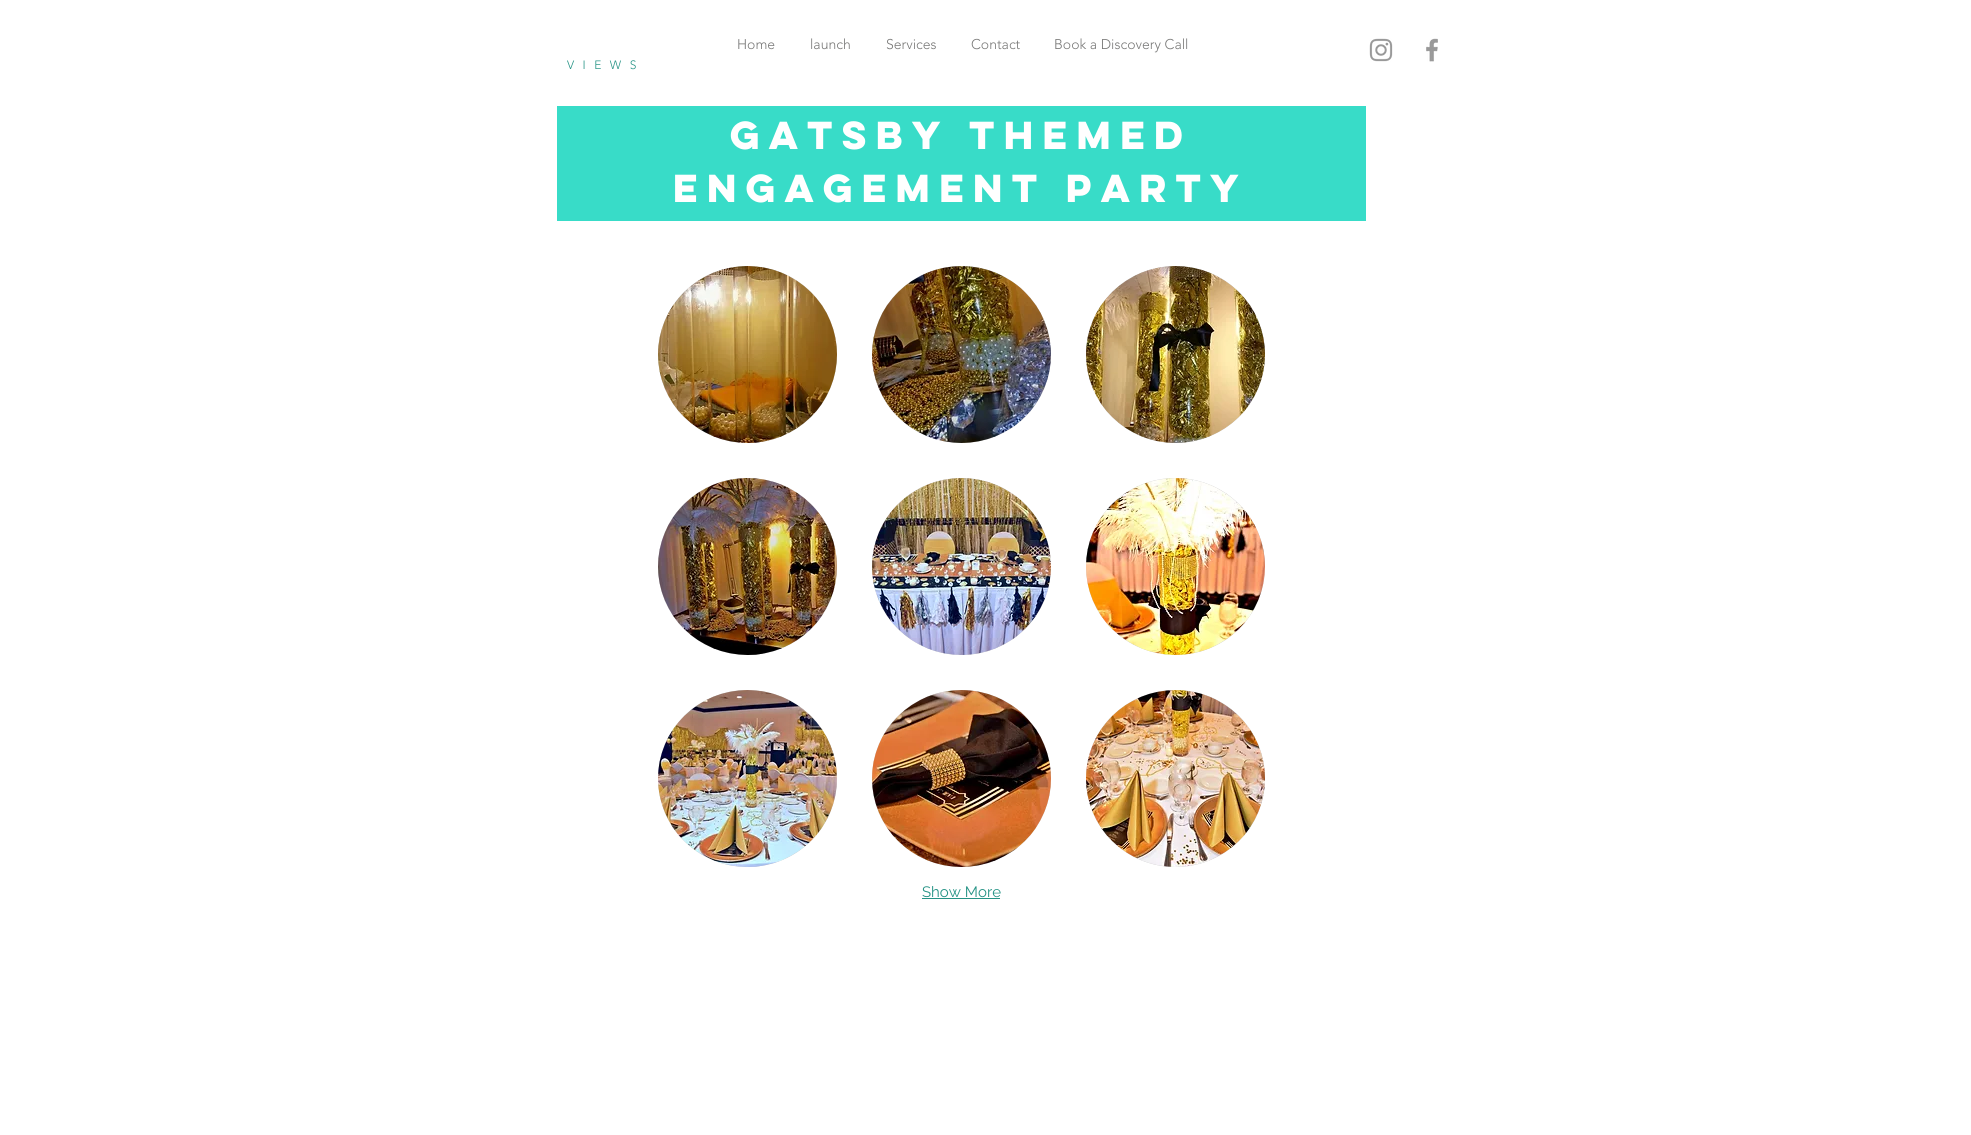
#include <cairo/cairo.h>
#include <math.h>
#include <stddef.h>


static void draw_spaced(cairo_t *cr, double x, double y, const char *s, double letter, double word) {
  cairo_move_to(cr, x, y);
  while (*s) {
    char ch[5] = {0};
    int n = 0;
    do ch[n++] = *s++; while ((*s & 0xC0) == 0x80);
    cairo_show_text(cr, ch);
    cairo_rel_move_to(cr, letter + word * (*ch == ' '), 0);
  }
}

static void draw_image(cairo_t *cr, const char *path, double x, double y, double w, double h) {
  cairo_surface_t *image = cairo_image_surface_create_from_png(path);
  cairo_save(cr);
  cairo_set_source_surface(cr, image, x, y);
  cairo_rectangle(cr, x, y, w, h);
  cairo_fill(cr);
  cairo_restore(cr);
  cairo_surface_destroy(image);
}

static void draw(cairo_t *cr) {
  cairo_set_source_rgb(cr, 1, 1, 1);
  cairo_paint(cr);
  draw_image(cr, "images/1.png", 1369, 38, 24, 24);
  draw_image(cr, "images/2.png", 1426, 38, 12, 24);
  cairo_set_source_rgb(cr, 56 / 255.0, 220 / 255.0, 200 / 255.0);
  cairo_rectangle(cr, 557, 106, 809, 115);
  cairo_fill(cr);
  cairo_set_source_rgb(cr, 204 / 255.0, 204 / 255.0, 204 / 255.0);
  cairo_new_path(cr);
  cairo_move_to(cr, 747.5, 266);
  cairo_curve_to(cr, 797, 266, 837, 305.5, 837, 354.5);
  cairo_curve_to(cr, 837, 403.5, 797, 443, 747.5, 443);
  cairo_curve_to(cr, 698, 443, 658, 403.5, 658, 354.5);
  cairo_curve_to(cr, 658, 305.5, 698, 266, 747.5, 266);
  cairo_close_path(cr);
  cairo_fill(cr);
  draw_image(cr, "images/3.png", 658, 266, 179, 177);
  cairo_new_path(cr);
  cairo_move_to(cr, 961.5, 266);
  cairo_curve_to(cr, 1011, 266, 1051, 305.5, 1051, 354.5);
  cairo_curve_to(cr, 1051, 403.5, 1011, 443, 961.5, 443);
  cairo_curve_to(cr, 912, 443, 872, 403.5, 872, 354.5);
  cairo_curve_to(cr, 872, 305.5, 912, 266, 961.5, 266);
  cairo_close_path(cr);
  cairo_fill(cr);
  draw_image(cr, "images/4.png", 872, 266, 179, 177);
  cairo_new_path(cr);
  cairo_move_to(cr, 1175.5, 266);
  cairo_curve_to(cr, 1225, 266, 1265, 305.5, 1265, 354.5);
  cairo_curve_to(cr, 1265, 403.5, 1225, 443, 1175.5, 443);
  cairo_curve_to(cr, 1126, 443, 1086, 403.5, 1086, 354.5);
  cairo_curve_to(cr, 1086, 305.5, 1126, 266, 1175.5, 266);
  cairo_close_path(cr);
  cairo_fill(cr);
  draw_image(cr, "images/5.png", 1086, 266, 179, 177);
  cairo_new_path(cr);
  cairo_move_to(cr, 747.5, 478);
  cairo_curve_to(cr, 797, 478, 837, 517.5, 837, 566.5);
  cairo_curve_to(cr, 837, 615.5, 797, 655, 747.5, 655);
  cairo_curve_to(cr, 698, 655, 658, 615.5, 658, 566.5);
  cairo_curve_to(cr, 658, 517.5, 698, 478, 747.5, 478);
  cairo_close_path(cr);
  cairo_fill(cr);
  draw_image(cr, "images/6.png", 658, 478, 179, 177);
  cairo_new_path(cr);
  cairo_move_to(cr, 961.5, 478);
  cairo_curve_to(cr, 1011, 478, 1051, 517.5, 1051, 566.5);
  cairo_curve_to(cr, 1051, 615.5, 1011, 655, 961.5, 655);
  cairo_curve_to(cr, 912, 655, 872, 615.5, 872, 566.5);
  cairo_curve_to(cr, 872, 517.5, 912, 478, 961.5, 478);
  cairo_close_path(cr);
  cairo_fill(cr);
  draw_image(cr, "images/7.png", 872, 478, 179, 177);
  cairo_new_path(cr);
  cairo_move_to(cr, 1175.5, 478);
  cairo_curve_to(cr, 1225, 478, 1265, 517.5, 1265, 566.5);
  cairo_curve_to(cr, 1265, 615.5, 1225, 655, 1175.5, 655);
  cairo_curve_to(cr, 1126, 655, 1086, 615.5, 1086, 566.5);
  cairo_curve_to(cr, 1086, 517.5, 1126, 478, 1175.5, 478);
  cairo_close_path(cr);
  cairo_fill(cr);
  draw_image(cr, "images/8.png", 1086, 478, 179, 177);
  cairo_new_path(cr);
  cairo_move_to(cr, 747.5, 690);
  cairo_curve_to(cr, 797, 690, 837, 729.5, 837, 778.5);
  cairo_curve_to(cr, 837, 827.5, 797, 867, 747.5, 867);
  cairo_curve_to(cr, 698, 867, 658, 827.5, 658, 778.5);
  cairo_curve_to(cr, 658, 729.5, 698, 690, 747.5, 690);
  cairo_close_path(cr);
  cairo_fill(cr);
  draw_image(cr, "images/9.png", 658, 690, 179, 177);
  cairo_new_path(cr);
  cairo_move_to(cr, 961.5, 690);
  cairo_curve_to(cr, 1011, 690, 1051, 729.5, 1051, 778.5);
  cairo_curve_to(cr, 1051, 827.5, 1011, 867, 961.5, 867);
  cairo_curve_to(cr, 912, 867, 872, 827.5, 872, 778.5);
  cairo_curve_to(cr, 872, 729.5, 912, 690, 961.5, 690);
  cairo_close_path(cr);
  cairo_fill(cr);
  draw_image(cr, "images/10.png", 872, 690, 179, 177);
  cairo_new_path(cr);
  cairo_move_to(cr, 1175.5, 690);
  cairo_curve_to(cr, 1225, 690, 1265, 729.5, 1265, 778.5);
  cairo_curve_to(cr, 1265, 827.5, 1225, 867, 1175.5, 867);
  cairo_curve_to(cr, 1126, 867, 1086, 827.5, 1086, 778.5);
  cairo_curve_to(cr, 1086, 729.5, 1126, 690, 1175.5, 690);
  cairo_close_path(cr);
  cairo_fill(cr);
  draw_image(cr, "images/11.png", 1086, 690, 179, 177);
  cairo_set_source_rgb(cr, 37 / 255.0, 147 / 255.0, 133 / 255.0);
  cairo_rectangle(cr, 922, 898, 78, 1);
  cairo_fill(cr);
  cairo_select_font_face(cr, "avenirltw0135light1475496 Light", CAIRO_FONT_SLANT_NORMAL, CAIRO_FONT_WEIGHT_NORMAL);
  cairo_set_font_size(cr, 14);
  cairo_set_source_rgb(cr, 120 / 255.0, 120 / 255.0, 119 / 255.0);
  cairo_move_to(cr, 737, 49);
  cairo_show_text(cr, "Home");
  cairo_move_to(cr, 810, 49);
  cairo_show_text(cr, "launch");
  cairo_move_to(cr, 886, 49);
  cairo_show_text(cr, "Services");
  cairo_move_to(cr, 971, 49);
  cairo_show_text(cr, "Contact");
  cairo_move_to(cr, 1054, 49);
  cairo_show_text(cr, "Book a Discovery Call");
  cairo_set_font_size(cr, 12);
  cairo_set_source_rgb(cr, 37 / 255.0, 147 / 255.0, 133 / 255.0);
  draw_spaced(cr, 567, 69, "VIEWS", 8.5, 0);
  cairo_select_font_face(cr, "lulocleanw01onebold", CAIRO_FONT_SLANT_NORMAL, CAIRO_FONT_WEIGHT_BOLD);
  cairo_set_font_size(cr, 35);
  cairo_set_source_rgb(cr, 1, 1, 1);
  draw_spaced(cr, 730, 149, "GATSBY THEMED", 1.5, 0);
  draw_spaced(cr, 673, 202, "ENGAGEMENT PARTY", 1.5, 0);
  cairo_select_font_face(cr, "Raleway", CAIRO_FONT_SLANT_NORMAL, CAIRO_FONT_WEIGHT_NORMAL);
  cairo_set_font_size(cr, 15);
  cairo_set_source_rgb(cr, 37 / 255.0, 147 / 255.0, 133 / 255.0);
  cairo_move_to(cr, 922, 897);
  cairo_show_text(cr, "Show More");
}

int main(void) {
  cairo_surface_t *surface = cairo_image_surface_create(CAIRO_FORMAT_RGB24, 1971, 1135);
  cairo_t *cr = cairo_create(surface);
  cairo_font_options_t *options = cairo_font_options_create();
  cairo_font_options_set_hint_metrics(options, CAIRO_HINT_METRICS_OFF);
  cairo_font_options_set_hint_style(options, CAIRO_HINT_STYLE_NONE);
  cairo_set_font_options(cr, options);
  cairo_set_miter_limit(cr, 4);
  draw(cr);
  cairo_surface_write_to_png(surface, "out.png");
  cairo_font_options_destroy(options);
  cairo_destroy(cr);
  cairo_surface_destroy(surface);
  return 0;
}
